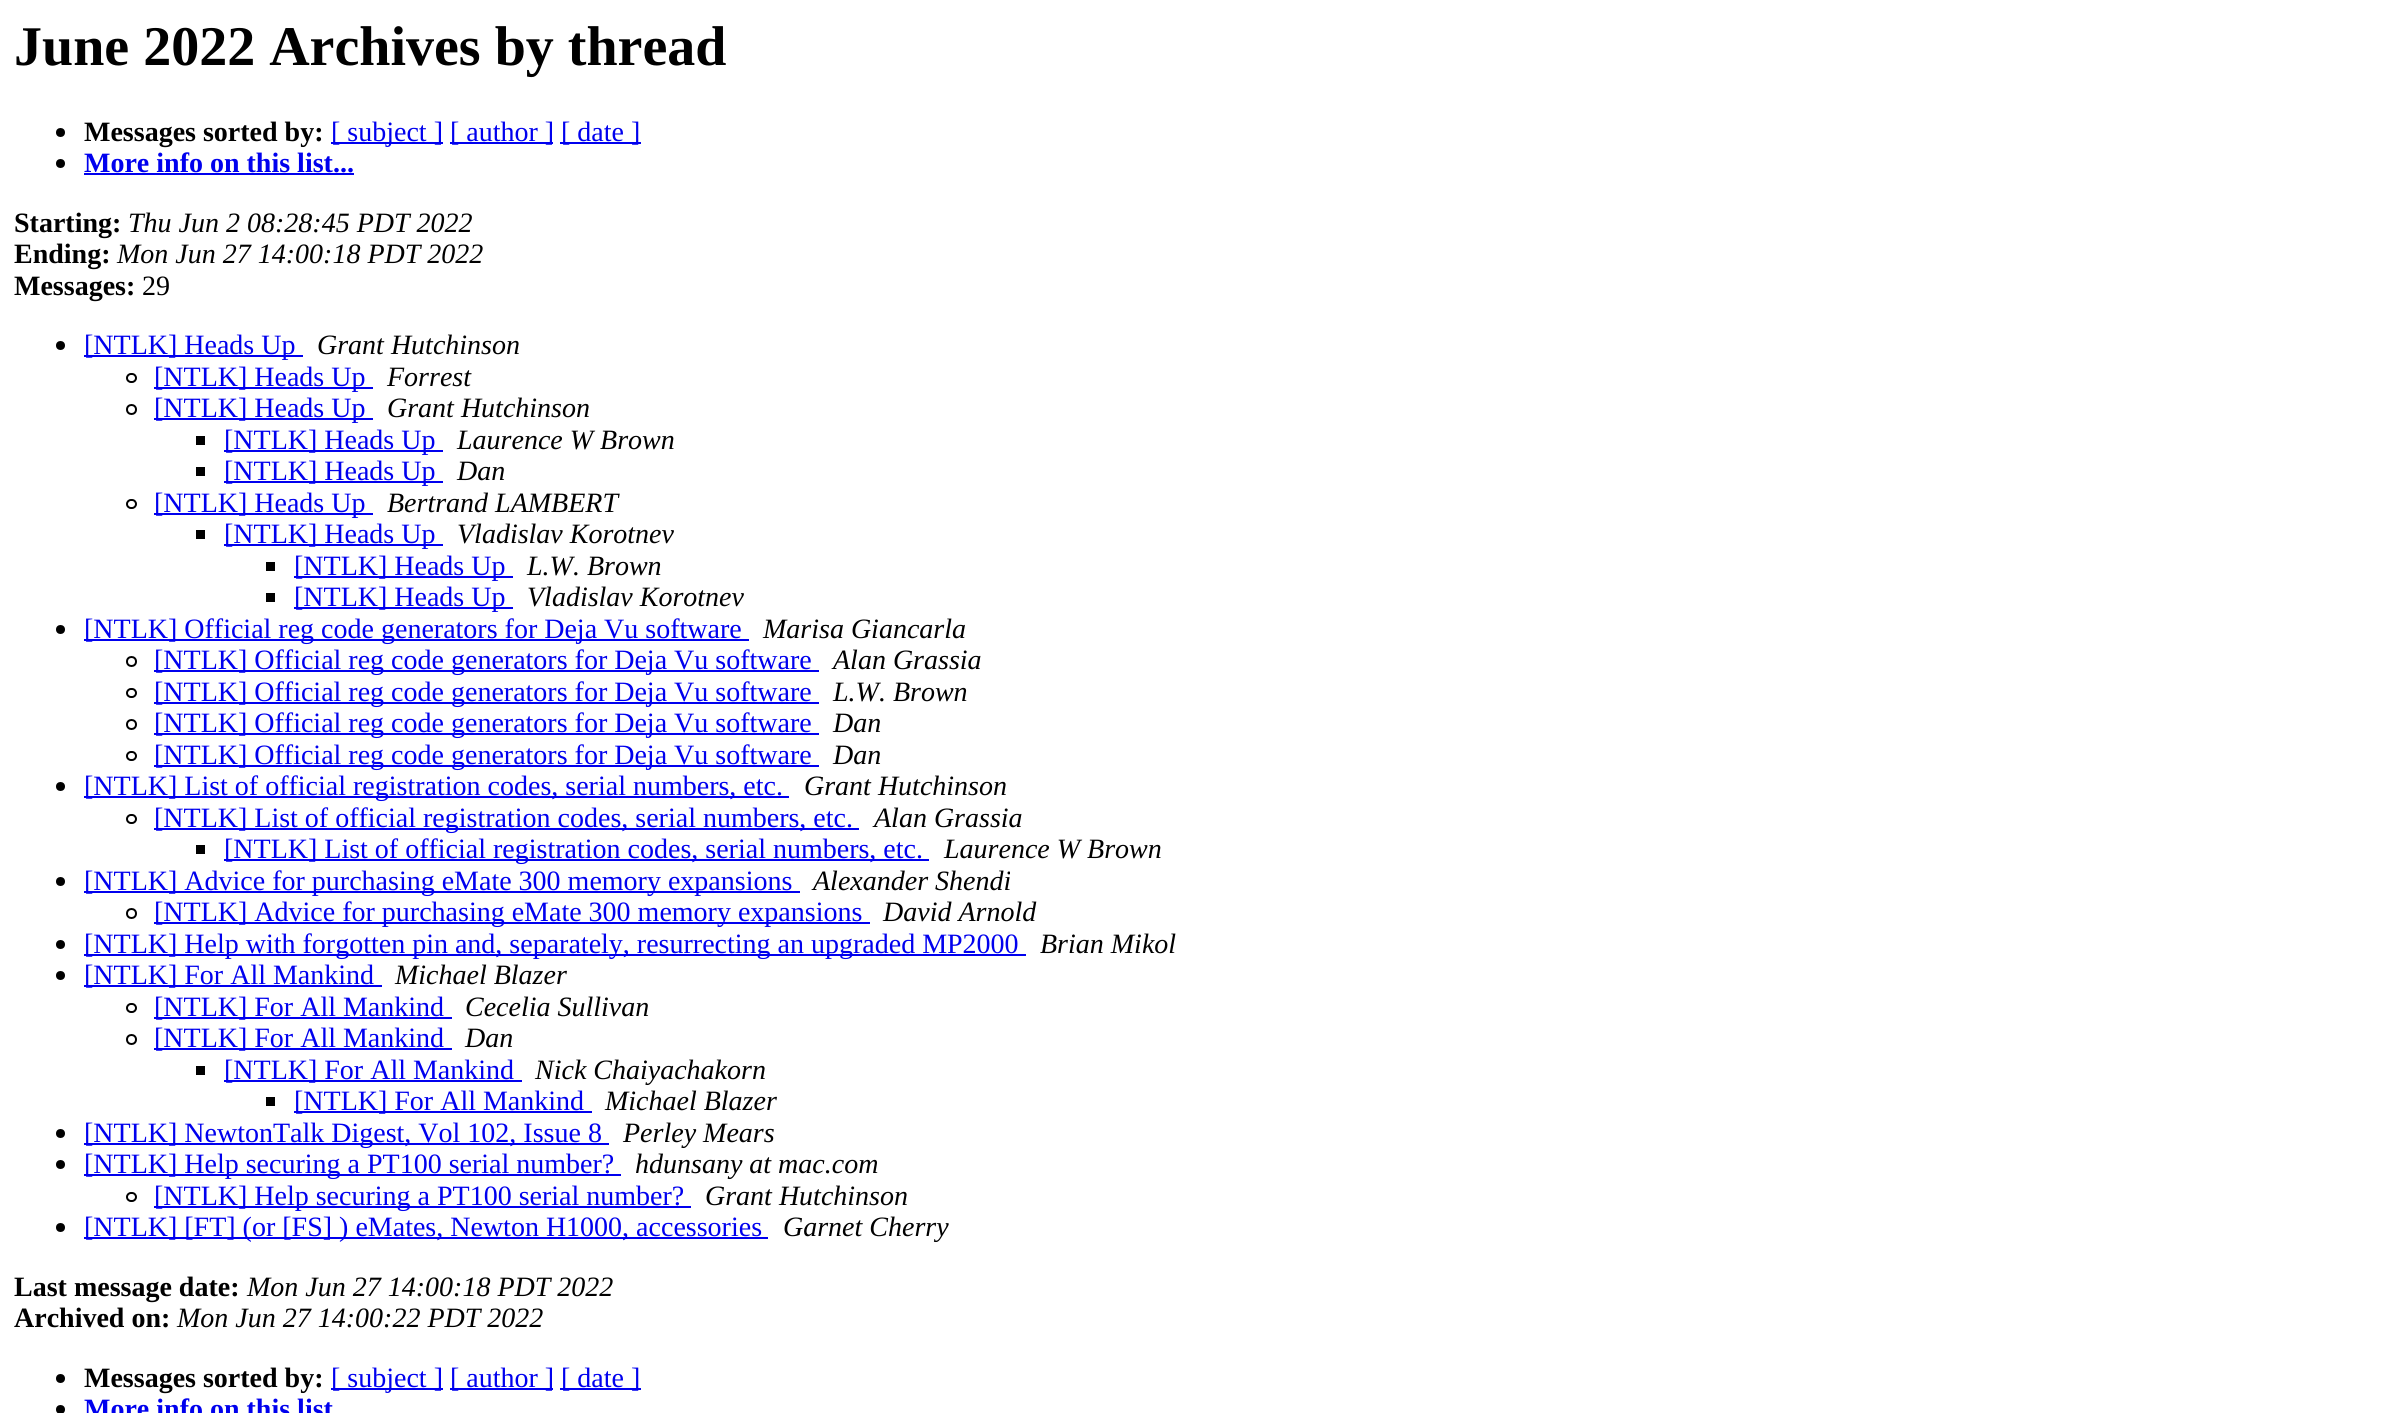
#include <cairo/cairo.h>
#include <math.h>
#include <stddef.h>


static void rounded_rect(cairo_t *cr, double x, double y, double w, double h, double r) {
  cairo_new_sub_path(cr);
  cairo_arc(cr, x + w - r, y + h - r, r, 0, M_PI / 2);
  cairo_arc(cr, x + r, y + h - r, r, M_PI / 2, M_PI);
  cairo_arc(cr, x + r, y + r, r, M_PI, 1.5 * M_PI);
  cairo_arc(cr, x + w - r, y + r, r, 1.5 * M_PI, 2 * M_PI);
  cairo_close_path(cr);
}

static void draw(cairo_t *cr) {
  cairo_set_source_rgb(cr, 1, 1, 1);
  cairo_paint(cr);
  cairo_set_source_rgb(cr, 0, 0, 0);
  cairo_arc(cr, 60.5, 132.5, 4.5, 0, 2 * M_PI);
  cairo_fill(cr);
  cairo_set_source_rgb(cr, 0, 0, 238 / 255.0);
  cairo_rectangle(cr, 331, 142, 112, 2);
  cairo_fill(cr);
  cairo_rectangle(cr, 450, 142, 103, 2);
  cairo_fill(cr);
  cairo_rectangle(cr, 560, 142, 81, 2);
  cairo_fill(cr);
  cairo_set_source_rgb(cr, 0, 0, 0);
  cairo_arc(cr, 60.5, 163.5, 4.5, 0, 2 * M_PI);
  cairo_fill(cr);
  cairo_set_source_rgb(cr, 0, 0, 238 / 255.0);
  cairo_rectangle(cr, 84, 173, 270, 2);
  cairo_fill(cr);
  cairo_set_source_rgb(cr, 0, 0, 0);
  cairo_arc(cr, 60.5, 345.5, 4.5, 0, 2 * M_PI);
  cairo_fill(cr);
  cairo_set_source_rgb(cr, 0, 0, 238 / 255.0);
  cairo_rectangle(cr, 84, 355, 219, 2);
  cairo_fill(cr);
  rounded_rect(cr, 127, 374, 9, 8, 4);
  cairo_set_source_rgb(cr, 0, 0, 0);
  cairo_stroke(cr);
  cairo_set_source_rgb(cr, 0, 0, 238 / 255.0);
  cairo_rectangle(cr, 154, 387, 219, 2);
  cairo_fill(cr);
  cairo_arc(cr, 131.5, 409.5, 4.5, 0, 2 * M_PI);
  cairo_set_source_rgb(cr, 0, 0, 0);
  cairo_stroke(cr);
  cairo_set_source_rgb(cr, 0, 0, 238 / 255.0);
  cairo_rectangle(cr, 154, 418, 219, 2);
  cairo_fill(cr);
  cairo_set_source_rgb(cr, 0, 0, 0);
  cairo_rectangle(cr, 196, 436, 9, 9);
  cairo_fill(cr);
  cairo_set_source_rgb(cr, 0, 0, 238 / 255.0);
  cairo_rectangle(cr, 224, 450, 219, 2);
  cairo_fill(cr);
  cairo_set_source_rgb(cr, 0, 0, 0);
  cairo_rectangle(cr, 196, 467, 9, 9);
  cairo_fill(cr);
  cairo_set_source_rgb(cr, 0, 0, 238 / 255.0);
  cairo_rectangle(cr, 224, 481, 219, 2);
  cairo_fill(cr);
  rounded_rect(cr, 127, 500, 9, 8, 4);
  cairo_set_source_rgb(cr, 0, 0, 0);
  cairo_stroke(cr);
  cairo_set_source_rgb(cr, 0, 0, 238 / 255.0);
  cairo_rectangle(cr, 154, 513, 219, 2);
  cairo_fill(cr);
  cairo_set_source_rgb(cr, 0, 0, 0);
  cairo_rectangle(cr, 196, 530, 9, 9);
  cairo_fill(cr);
  cairo_set_source_rgb(cr, 0, 0, 238 / 255.0);
  cairo_rectangle(cr, 224, 544, 219, 2);
  cairo_fill(cr);
  cairo_set_source_rgb(cr, 0, 0, 0);
  cairo_rectangle(cr, 266, 562, 9, 9);
  cairo_fill(cr);
  cairo_set_source_rgb(cr, 0, 0, 238 / 255.0);
  cairo_rectangle(cr, 294, 576, 219, 2);
  cairo_fill(cr);
  cairo_set_source_rgb(cr, 0, 0, 0);
  cairo_rectangle(cr, 266, 593, 9, 9);
  cairo_fill(cr);
  cairo_set_source_rgb(cr, 0, 0, 238 / 255.0);
  cairo_rectangle(cr, 294, 607, 219, 2);
  cairo_fill(cr);
  cairo_set_source_rgb(cr, 0, 0, 0);
  cairo_arc(cr, 60.5, 629.5, 4.5, 0, 2 * M_PI);
  cairo_fill(cr);
  cairo_set_source_rgb(cr, 0, 0, 238 / 255.0);
  cairo_rectangle(cr, 84, 639, 665, 2);
  cairo_fill(cr);
  cairo_arc(cr, 131.5, 661.5, 4.5, 0, 2 * M_PI);
  cairo_set_source_rgb(cr, 0, 0, 0);
  cairo_stroke(cr);
  cairo_set_source_rgb(cr, 0, 0, 238 / 255.0);
  cairo_rectangle(cr, 154, 670, 665, 2);
  cairo_fill(cr);
  rounded_rect(cr, 127, 689, 9, 8, 4);
  cairo_set_source_rgb(cr, 0, 0, 0);
  cairo_stroke(cr);
  cairo_set_source_rgb(cr, 0, 0, 238 / 255.0);
  cairo_rectangle(cr, 154, 702, 665, 2);
  cairo_fill(cr);
  cairo_arc(cr, 131.5, 724.5, 4.5, 0, 2 * M_PI);
  cairo_set_source_rgb(cr, 0, 0, 0);
  cairo_stroke(cr);
  cairo_set_source_rgb(cr, 0, 0, 238 / 255.0);
  cairo_rectangle(cr, 154, 733, 665, 2);
  cairo_fill(cr);
  rounded_rect(cr, 127, 752, 9, 8, 4);
  cairo_set_source_rgb(cr, 0, 0, 0);
  cairo_stroke(cr);
  cairo_set_source_rgb(cr, 0, 0, 238 / 255.0);
  cairo_rectangle(cr, 154, 765, 665, 2);
  cairo_fill(cr);
  cairo_set_source_rgb(cr, 0, 0, 0);
  cairo_arc(cr, 60.5, 786.5, 4.5, 0, 2 * M_PI);
  cairo_fill(cr);
  cairo_set_source_rgb(cr, 0, 0, 238 / 255.0);
  cairo_rectangle(cr, 84, 796, 705, 2);
  cairo_fill(cr);
  rounded_rect(cr, 127, 815, 9, 8, 4);
  cairo_set_source_rgb(cr, 0, 0, 0);
  cairo_stroke(cr);
  cairo_set_source_rgb(cr, 0, 0, 238 / 255.0);
  cairo_rectangle(cr, 154, 828, 705, 2);
  cairo_fill(cr);
  cairo_set_source_rgb(cr, 0, 0, 0);
  cairo_rectangle(cr, 196, 845, 9, 9);
  cairo_fill(cr);
  cairo_set_source_rgb(cr, 0, 0, 238 / 255.0);
  cairo_rectangle(cr, 224, 859, 705, 2);
  cairo_fill(cr);
  cairo_set_source_rgb(cr, 0, 0, 0);
  cairo_arc(cr, 60.5, 881.5, 4.5, 0, 2 * M_PI);
  cairo_fill(cr);
  cairo_set_source_rgb(cr, 0, 0, 238 / 255.0);
  cairo_rectangle(cr, 84, 891, 716, 2);
  cairo_fill(cr);
  cairo_arc(cr, 131.5, 913.5, 4.5, 0, 2 * M_PI);
  cairo_set_source_rgb(cr, 0, 0, 0);
  cairo_stroke(cr);
  cairo_set_source_rgb(cr, 0, 0, 238 / 255.0);
  cairo_rectangle(cr, 154, 922, 716, 2);
  cairo_fill(cr);
  cairo_set_source_rgb(cr, 0, 0, 0);
  cairo_arc(cr, 60.5, 944.5, 4.5, 0, 2 * M_PI);
  cairo_fill(cr);
  cairo_set_source_rgb(cr, 0, 0, 238 / 255.0);
  cairo_rectangle(cr, 84, 954, 942, 2);
  cairo_fill(cr);
  cairo_set_source_rgb(cr, 0, 0, 0);
  cairo_arc(cr, 60.5, 975.5, 4.5, 0, 2 * M_PI);
  cairo_fill(cr);
  cairo_set_source_rgb(cr, 0, 0, 238 / 255.0);
  cairo_rectangle(cr, 84, 985, 298, 2);
  cairo_fill(cr);
  rounded_rect(cr, 127, 1004, 9, 8, 4);
  cairo_set_source_rgb(cr, 0, 0, 0);
  cairo_stroke(cr);
  cairo_set_source_rgb(cr, 0, 0, 238 / 255.0);
  cairo_rectangle(cr, 154, 1017, 298, 2);
  cairo_fill(cr);
  cairo_arc(cr, 131.5, 1039.5, 4.5, 0, 2 * M_PI);
  cairo_set_source_rgb(cr, 0, 0, 0);
  cairo_stroke(cr);
  cairo_set_source_rgb(cr, 0, 0, 238 / 255.0);
  cairo_rectangle(cr, 154, 1048, 298, 2);
  cairo_fill(cr);
  cairo_set_source_rgb(cr, 0, 0, 0);
  cairo_rectangle(cr, 196, 1066, 9, 9);
  cairo_fill(cr);
  cairo_set_source_rgb(cr, 0, 0, 238 / 255.0);
  cairo_rectangle(cr, 224, 1080, 298, 2);
  cairo_fill(cr);
  cairo_set_source_rgb(cr, 0, 0, 0);
  cairo_rectangle(cr, 266, 1097, 9, 9);
  cairo_fill(cr);
  cairo_set_source_rgb(cr, 0, 0, 238 / 255.0);
  cairo_rectangle(cr, 294, 1111, 298, 2);
  cairo_fill(cr);
  cairo_set_source_rgb(cr, 0, 0, 0);
  cairo_arc(cr, 60.5, 1133.5, 4.5, 0, 2 * M_PI);
  cairo_fill(cr);
  cairo_set_source_rgb(cr, 0, 0, 238 / 255.0);
  cairo_rectangle(cr, 84, 1143, 525, 2);
  cairo_fill(cr);
  cairo_set_source_rgb(cr, 0, 0, 0);
  cairo_arc(cr, 60.5, 1164.5, 4.5, 0, 2 * M_PI);
  cairo_fill(cr);
  cairo_set_source_rgb(cr, 0, 0, 238 / 255.0);
  cairo_rectangle(cr, 84, 1174, 537, 2);
  cairo_fill(cr);
  rounded_rect(cr, 127, 1193, 9, 8, 4);
  cairo_set_source_rgb(cr, 0, 0, 0);
  cairo_stroke(cr);
  cairo_set_source_rgb(cr, 0, 0, 238 / 255.0);
  cairo_rectangle(cr, 154, 1206, 537, 2);
  cairo_fill(cr);
  cairo_set_source_rgb(cr, 0, 0, 0);
  cairo_arc(cr, 60.5, 1227.5, 4.5, 0, 2 * M_PI);
  cairo_fill(cr);
  cairo_set_source_rgb(cr, 0, 0, 238 / 255.0);
  cairo_rectangle(cr, 84, 1237, 684, 2);
  cairo_fill(cr);
  cairo_set_source_rgb(cr, 0, 0, 0);
  cairo_arc(cr, 60.5, 1378.5, 4.5, 0, 2 * M_PI);
  cairo_fill(cr);
  cairo_set_source_rgb(cr, 0, 0, 238 / 255.0);
  cairo_rectangle(cr, 331, 1388, 112, 2);
  cairo_fill(cr);
  cairo_rectangle(cr, 450, 1388, 103, 2);
  cairo_fill(cr);
  cairo_rectangle(cr, 560, 1388, 81, 2);
  cairo_fill(cr);
  cairo_set_source_rgb(cr, 0, 0, 0);
  cairo_arc(cr, 60.5, 1409.5, 4.5, 0, 2 * M_PI);
  cairo_fill(cr);
  cairo_select_font_face(cr, "Liberation Serif", CAIRO_FONT_SLANT_NORMAL, CAIRO_FONT_WEIGHT_BOLD);
  cairo_set_font_size(cr, 56);
  cairo_move_to(cr, 14, 65);
  cairo_show_text(cr, "June 2022 Archives by thread");
  cairo_set_font_size(cr, 28);
  cairo_move_to(cr, 84, 141);
  cairo_show_text(cr, "Messages sorted by:");
  cairo_select_font_face(cr, "Liberation Serif", CAIRO_FONT_SLANT_NORMAL, CAIRO_FONT_WEIGHT_NORMAL);
  cairo_set_source_rgb(cr, 0, 0, 238 / 255.0);
  cairo_move_to(cr, 331, 141);
  cairo_show_text(cr, "[ subject ]");
  cairo_move_to(cr, 450, 141);
  cairo_show_text(cr, "[ author ]");
  cairo_move_to(cr, 561, 141);
  cairo_show_text(cr, "[ date ]");
  cairo_select_font_face(cr, "Liberation Serif", CAIRO_FONT_SLANT_NORMAL, CAIRO_FONT_WEIGHT_BOLD);
  cairo_move_to(cr, 84, 172);
  cairo_show_text(cr, "More info on this list...");
  cairo_set_source_rgb(cr, 0, 0, 0);
  cairo_move_to(cr, 14, 232);
  cairo_show_text(cr, "Starting:");
  cairo_select_font_face(cr, "Liberation Serif", CAIRO_FONT_SLANT_ITALIC, CAIRO_FONT_WEIGHT_NORMAL);
  cairo_move_to(cr, 128, 232);
  cairo_show_text(cr, "Thu Jun 2 08:28:45 PDT 2022");
  cairo_select_font_face(cr, "Liberation Serif", CAIRO_FONT_SLANT_NORMAL, CAIRO_FONT_WEIGHT_BOLD);
  cairo_move_to(cr, 14, 263);
  cairo_show_text(cr, "Ending:");
  cairo_select_font_face(cr, "Liberation Serif", CAIRO_FONT_SLANT_ITALIC, CAIRO_FONT_WEIGHT_NORMAL);
  cairo_move_to(cr, 117, 263);
  cairo_show_text(cr, "Mon Jun 27 14:00:18 PDT 2022");
  cairo_select_font_face(cr, "Liberation Serif", CAIRO_FONT_SLANT_NORMAL, CAIRO_FONT_WEIGHT_BOLD);
  cairo_move_to(cr, 14, 295);
  cairo_show_text(cr, "Messages:");
  cairo_select_font_face(cr, "Liberation Serif", CAIRO_FONT_SLANT_NORMAL, CAIRO_FONT_WEIGHT_NORMAL);
  cairo_move_to(cr, 142, 295);
  cairo_show_text(cr, "29");
  cairo_set_source_rgb(cr, 0, 0, 238 / 255.0);
  cairo_move_to(cr, 84, 354);
  cairo_show_text(cr, "[NTLK] Heads Up");
  cairo_select_font_face(cr, "Liberation Serif", CAIRO_FONT_SLANT_ITALIC, CAIRO_FONT_WEIGHT_NORMAL);
  cairo_set_source_rgb(cr, 0, 0, 0);
  cairo_move_to(cr, 317, 354);
  cairo_show_text(cr, "Grant Hutchinson");
  cairo_select_font_face(cr, "Liberation Serif", CAIRO_FONT_SLANT_NORMAL, CAIRO_FONT_WEIGHT_NORMAL);
  cairo_set_source_rgb(cr, 0, 0, 238 / 255.0);
  cairo_move_to(cr, 154, 386);
  cairo_show_text(cr, "[NTLK] Heads Up");
  cairo_select_font_face(cr, "Liberation Serif", CAIRO_FONT_SLANT_ITALIC, CAIRO_FONT_WEIGHT_NORMAL);
  cairo_set_source_rgb(cr, 0, 0, 0);
  cairo_move_to(cr, 387, 386);
  cairo_show_text(cr, "Forrest");
  cairo_select_font_face(cr, "Liberation Serif", CAIRO_FONT_SLANT_NORMAL, CAIRO_FONT_WEIGHT_NORMAL);
  cairo_set_source_rgb(cr, 0, 0, 238 / 255.0);
  cairo_move_to(cr, 154, 417);
  cairo_show_text(cr, "[NTLK] Heads Up");
  cairo_select_font_face(cr, "Liberation Serif", CAIRO_FONT_SLANT_ITALIC, CAIRO_FONT_WEIGHT_NORMAL);
  cairo_set_source_rgb(cr, 0, 0, 0);
  cairo_move_to(cr, 387, 417);
  cairo_show_text(cr, "Grant Hutchinson");
  cairo_select_font_face(cr, "Liberation Serif", CAIRO_FONT_SLANT_NORMAL, CAIRO_FONT_WEIGHT_NORMAL);
  cairo_set_source_rgb(cr, 0, 0, 238 / 255.0);
  cairo_move_to(cr, 224, 449);
  cairo_show_text(cr, "[NTLK] Heads Up");
  cairo_select_font_face(cr, "Liberation Serif", CAIRO_FONT_SLANT_ITALIC, CAIRO_FONT_WEIGHT_NORMAL);
  cairo_set_source_rgb(cr, 0, 0, 0);
  cairo_move_to(cr, 457, 449);
  cairo_show_text(cr, "Laurence W Brown");
  cairo_select_font_face(cr, "Liberation Serif", CAIRO_FONT_SLANT_NORMAL, CAIRO_FONT_WEIGHT_NORMAL);
  cairo_set_source_rgb(cr, 0, 0, 238 / 255.0);
  cairo_move_to(cr, 224, 480);
  cairo_show_text(cr, "[NTLK] Heads Up");
  cairo_select_font_face(cr, "Liberation Serif", CAIRO_FONT_SLANT_ITALIC, CAIRO_FONT_WEIGHT_NORMAL);
  cairo_set_source_rgb(cr, 0, 0, 0);
  cairo_move_to(cr, 457, 480);
  cairo_show_text(cr, "Dan");
  cairo_select_font_face(cr, "Liberation Serif", CAIRO_FONT_SLANT_NORMAL, CAIRO_FONT_WEIGHT_NORMAL);
  cairo_set_source_rgb(cr, 0, 0, 238 / 255.0);
  cairo_move_to(cr, 154, 512);
  cairo_show_text(cr, "[NTLK] Heads Up");
  cairo_select_font_face(cr, "Liberation Serif", CAIRO_FONT_SLANT_ITALIC, CAIRO_FONT_WEIGHT_NORMAL);
  cairo_set_source_rgb(cr, 0, 0, 0);
  cairo_move_to(cr, 387, 512);
  cairo_show_text(cr, "Bertrand LAMBERT");
  cairo_select_font_face(cr, "Liberation Serif", CAIRO_FONT_SLANT_NORMAL, CAIRO_FONT_WEIGHT_NORMAL);
  cairo_set_source_rgb(cr, 0, 0, 238 / 255.0);
  cairo_move_to(cr, 224, 543);
  cairo_show_text(cr, "[NTLK] Heads Up");
  cairo_select_font_face(cr, "Liberation Serif", CAIRO_FONT_SLANT_ITALIC, CAIRO_FONT_WEIGHT_NORMAL);
  cairo_set_source_rgb(cr, 0, 0, 0);
  cairo_move_to(cr, 457, 543);
  cairo_show_text(cr, "Vladislav Korotnev");
  cairo_select_font_face(cr, "Liberation Serif", CAIRO_FONT_SLANT_NORMAL, CAIRO_FONT_WEIGHT_NORMAL);
  cairo_set_source_rgb(cr, 0, 0, 238 / 255.0);
  cairo_move_to(cr, 294, 575);
  cairo_show_text(cr, "[NTLK] Heads Up");
  cairo_select_font_face(cr, "Liberation Serif", CAIRO_FONT_SLANT_ITALIC, CAIRO_FONT_WEIGHT_NORMAL);
  cairo_set_source_rgb(cr, 0, 0, 0);
  cairo_move_to(cr, 527, 575);
  cairo_show_text(cr, "L.W. Brown");
  cairo_select_font_face(cr, "Liberation Serif", CAIRO_FONT_SLANT_NORMAL, CAIRO_FONT_WEIGHT_NORMAL);
  cairo_set_source_rgb(cr, 0, 0, 238 / 255.0);
  cairo_move_to(cr, 294, 606);
  cairo_show_text(cr, "[NTLK] Heads Up");
  cairo_select_font_face(cr, "Liberation Serif", CAIRO_FONT_SLANT_ITALIC, CAIRO_FONT_WEIGHT_NORMAL);
  cairo_set_source_rgb(cr, 0, 0, 0);
  cairo_move_to(cr, 527, 606);
  cairo_show_text(cr, "Vladislav Korotnev");
  cairo_select_font_face(cr, "Liberation Serif", CAIRO_FONT_SLANT_NORMAL, CAIRO_FONT_WEIGHT_NORMAL);
  cairo_set_source_rgb(cr, 0, 0, 238 / 255.0);
  cairo_move_to(cr, 84, 638);
  cairo_show_text(cr, "[NTLK] Official reg code generators for Deja Vu software");
  cairo_select_font_face(cr, "Liberation Serif", CAIRO_FONT_SLANT_ITALIC, CAIRO_FONT_WEIGHT_NORMAL);
  cairo_set_source_rgb(cr, 0, 0, 0);
  cairo_move_to(cr, 763, 638);
  cairo_show_text(cr, "Marisa Giancarla");
  cairo_select_font_face(cr, "Liberation Serif", CAIRO_FONT_SLANT_NORMAL, CAIRO_FONT_WEIGHT_NORMAL);
  cairo_set_source_rgb(cr, 0, 0, 238 / 255.0);
  cairo_move_to(cr, 154, 669);
  cairo_show_text(cr, "[NTLK] Official reg code generators for Deja Vu software");
  cairo_select_font_face(cr, "Liberation Serif", CAIRO_FONT_SLANT_ITALIC, CAIRO_FONT_WEIGHT_NORMAL);
  cairo_set_source_rgb(cr, 0, 0, 0);
  cairo_move_to(cr, 833, 669);
  cairo_show_text(cr, "Alan Grassia");
  cairo_select_font_face(cr, "Liberation Serif", CAIRO_FONT_SLANT_NORMAL, CAIRO_FONT_WEIGHT_NORMAL);
  cairo_set_source_rgb(cr, 0, 0, 238 / 255.0);
  cairo_move_to(cr, 154, 701);
  cairo_show_text(cr, "[NTLK] Official reg code generators for Deja Vu software");
  cairo_select_font_face(cr, "Liberation Serif", CAIRO_FONT_SLANT_ITALIC, CAIRO_FONT_WEIGHT_NORMAL);
  cairo_set_source_rgb(cr, 0, 0, 0);
  cairo_move_to(cr, 833, 701);
  cairo_show_text(cr, "L.W. Brown");
  cairo_select_font_face(cr, "Liberation Serif", CAIRO_FONT_SLANT_NORMAL, CAIRO_FONT_WEIGHT_NORMAL);
  cairo_set_source_rgb(cr, 0, 0, 238 / 255.0);
  cairo_move_to(cr, 154, 732);
  cairo_show_text(cr, "[NTLK] Official reg code generators for Deja Vu software");
  cairo_select_font_face(cr, "Liberation Serif", CAIRO_FONT_SLANT_ITALIC, CAIRO_FONT_WEIGHT_NORMAL);
  cairo_set_source_rgb(cr, 0, 0, 0);
  cairo_move_to(cr, 833, 732);
  cairo_show_text(cr, "Dan");
  cairo_select_font_face(cr, "Liberation Serif", CAIRO_FONT_SLANT_NORMAL, CAIRO_FONT_WEIGHT_NORMAL);
  cairo_set_source_rgb(cr, 0, 0, 238 / 255.0);
  cairo_move_to(cr, 154, 764);
  cairo_show_text(cr, "[NTLK] Official reg code generators for Deja Vu software");
  cairo_select_font_face(cr, "Liberation Serif", CAIRO_FONT_SLANT_ITALIC, CAIRO_FONT_WEIGHT_NORMAL);
  cairo_set_source_rgb(cr, 0, 0, 0);
  cairo_move_to(cr, 833, 764);
  cairo_show_text(cr, "Dan");
  cairo_select_font_face(cr, "Liberation Serif", CAIRO_FONT_SLANT_NORMAL, CAIRO_FONT_WEIGHT_NORMAL);
  cairo_set_source_rgb(cr, 0, 0, 238 / 255.0);
  cairo_move_to(cr, 84, 795);
  cairo_show_text(cr, "[NTLK] List of official registration codes, serial numbers, etc.");
  cairo_select_font_face(cr, "Liberation Serif", CAIRO_FONT_SLANT_ITALIC, CAIRO_FONT_WEIGHT_NORMAL);
  cairo_set_source_rgb(cr, 0, 0, 0);
  cairo_move_to(cr, 804, 795);
  cairo_show_text(cr, "Grant Hutchinson");
  cairo_select_font_face(cr, "Liberation Serif", CAIRO_FONT_SLANT_NORMAL, CAIRO_FONT_WEIGHT_NORMAL);
  cairo_set_source_rgb(cr, 0, 0, 238 / 255.0);
  cairo_move_to(cr, 154, 827);
  cairo_show_text(cr, "[NTLK] List of official registration codes, serial numbers, etc.");
  cairo_select_font_face(cr, "Liberation Serif", CAIRO_FONT_SLANT_ITALIC, CAIRO_FONT_WEIGHT_NORMAL);
  cairo_set_source_rgb(cr, 0, 0, 0);
  cairo_move_to(cr, 874, 827);
  cairo_show_text(cr, "Alan Grassia");
  cairo_select_font_face(cr, "Liberation Serif", CAIRO_FONT_SLANT_NORMAL, CAIRO_FONT_WEIGHT_NORMAL);
  cairo_set_source_rgb(cr, 0, 0, 238 / 255.0);
  cairo_move_to(cr, 224, 858);
  cairo_show_text(cr, "[NTLK] List of official registration codes, serial numbers, etc.");
  cairo_select_font_face(cr, "Liberation Serif", CAIRO_FONT_SLANT_ITALIC, CAIRO_FONT_WEIGHT_NORMAL);
  cairo_set_source_rgb(cr, 0, 0, 0);
  cairo_move_to(cr, 944, 858);
  cairo_show_text(cr, "Laurence W Brown");
  cairo_select_font_face(cr, "Liberation Serif", CAIRO_FONT_SLANT_NORMAL, CAIRO_FONT_WEIGHT_NORMAL);
  cairo_set_source_rgb(cr, 0, 0, 238 / 255.0);
  cairo_move_to(cr, 84, 890);
  cairo_show_text(cr, "[NTLK] Advice for purchasing eMate 300 memory expansions");
  cairo_select_font_face(cr, "Liberation Serif", CAIRO_FONT_SLANT_ITALIC, CAIRO_FONT_WEIGHT_NORMAL);
  cairo_set_source_rgb(cr, 0, 0, 0);
  cairo_move_to(cr, 813, 890);
  cairo_show_text(cr, "Alexander Shendi");
  cairo_select_font_face(cr, "Liberation Serif", CAIRO_FONT_SLANT_NORMAL, CAIRO_FONT_WEIGHT_NORMAL);
  cairo_set_source_rgb(cr, 0, 0, 238 / 255.0);
  cairo_move_to(cr, 154, 921);
  cairo_show_text(cr, "[NTLK] Advice for purchasing eMate 300 memory expansions");
  cairo_select_font_face(cr, "Liberation Serif", CAIRO_FONT_SLANT_ITALIC, CAIRO_FONT_WEIGHT_NORMAL);
  cairo_set_source_rgb(cr, 0, 0, 0);
  cairo_move_to(cr, 883, 921);
  cairo_show_text(cr, "David Arnold");
  cairo_select_font_face(cr, "Liberation Serif", CAIRO_FONT_SLANT_NORMAL, CAIRO_FONT_WEIGHT_NORMAL);
  cairo_set_source_rgb(cr, 0, 0, 238 / 255.0);
  cairo_move_to(cr, 84, 953);
  cairo_show_text(cr, "[NTLK] Help with forgotten pin and, separately, resurrecting an upgraded MP2000");
  cairo_select_font_face(cr, "Liberation Serif", CAIRO_FONT_SLANT_ITALIC, CAIRO_FONT_WEIGHT_NORMAL);
  cairo_set_source_rgb(cr, 0, 0, 0);
  cairo_move_to(cr, 1040, 953);
  cairo_show_text(cr, "Brian Mikol");
  cairo_select_font_face(cr, "Liberation Serif", CAIRO_FONT_SLANT_NORMAL, CAIRO_FONT_WEIGHT_NORMAL);
  cairo_set_source_rgb(cr, 0, 0, 238 / 255.0);
  cairo_move_to(cr, 84, 984);
  cairo_show_text(cr, "[NTLK] For All Mankind");
  cairo_select_font_face(cr, "Liberation Serif", CAIRO_FONT_SLANT_ITALIC, CAIRO_FONT_WEIGHT_NORMAL);
  cairo_set_source_rgb(cr, 0, 0, 0);
  cairo_move_to(cr, 395, 984);
  cairo_show_text(cr, "Michael Blazer");
  cairo_select_font_face(cr, "Liberation Serif", CAIRO_FONT_SLANT_NORMAL, CAIRO_FONT_WEIGHT_NORMAL);
  cairo_set_source_rgb(cr, 0, 0, 238 / 255.0);
  cairo_move_to(cr, 154, 1016);
  cairo_show_text(cr, "[NTLK] For All Mankind");
  cairo_select_font_face(cr, "Liberation Serif", CAIRO_FONT_SLANT_ITALIC, CAIRO_FONT_WEIGHT_NORMAL);
  cairo_set_source_rgb(cr, 0, 0, 0);
  cairo_move_to(cr, 465, 1016);
  cairo_show_text(cr, "Cecelia Sullivan");
  cairo_select_font_face(cr, "Liberation Serif", CAIRO_FONT_SLANT_NORMAL, CAIRO_FONT_WEIGHT_NORMAL);
  cairo_set_source_rgb(cr, 0, 0, 238 / 255.0);
  cairo_move_to(cr, 154, 1047);
  cairo_show_text(cr, "[NTLK] For All Mankind");
  cairo_select_font_face(cr, "Liberation Serif", CAIRO_FONT_SLANT_ITALIC, CAIRO_FONT_WEIGHT_NORMAL);
  cairo_set_source_rgb(cr, 0, 0, 0);
  cairo_move_to(cr, 465, 1047);
  cairo_show_text(cr, "Dan");
  cairo_select_font_face(cr, "Liberation Serif", CAIRO_FONT_SLANT_NORMAL, CAIRO_FONT_WEIGHT_NORMAL);
  cairo_set_source_rgb(cr, 0, 0, 238 / 255.0);
  cairo_move_to(cr, 224, 1079);
  cairo_show_text(cr, "[NTLK] For All Mankind");
  cairo_select_font_face(cr, "Liberation Serif", CAIRO_FONT_SLANT_ITALIC, CAIRO_FONT_WEIGHT_NORMAL);
  cairo_set_source_rgb(cr, 0, 0, 0);
  cairo_move_to(cr, 535, 1079);
  cairo_show_text(cr, "Nick Chaiyachakorn");
  cairo_select_font_face(cr, "Liberation Serif", CAIRO_FONT_SLANT_NORMAL, CAIRO_FONT_WEIGHT_NORMAL);
  cairo_set_source_rgb(cr, 0, 0, 238 / 255.0);
  cairo_move_to(cr, 294, 1110);
  cairo_show_text(cr, "[NTLK] For All Mankind");
  cairo_select_font_face(cr, "Liberation Serif", CAIRO_FONT_SLANT_ITALIC, CAIRO_FONT_WEIGHT_NORMAL);
  cairo_set_source_rgb(cr, 0, 0, 0);
  cairo_move_to(cr, 605, 1110);
  cairo_show_text(cr, "Michael Blazer");
  cairo_select_font_face(cr, "Liberation Serif", CAIRO_FONT_SLANT_NORMAL, CAIRO_FONT_WEIGHT_NORMAL);
  cairo_set_source_rgb(cr, 0, 0, 238 / 255.0);
  cairo_move_to(cr, 84, 1142);
  cairo_show_text(cr, "[NTLK] NewtonTalk Digest, Vol 102, Issue 8");
  cairo_select_font_face(cr, "Liberation Serif", CAIRO_FONT_SLANT_ITALIC, CAIRO_FONT_WEIGHT_NORMAL);
  cairo_set_source_rgb(cr, 0, 0, 0);
  cairo_move_to(cr, 623, 1142);
  cairo_show_text(cr, "Perley Mears");
  cairo_select_font_face(cr, "Liberation Serif", CAIRO_FONT_SLANT_NORMAL, CAIRO_FONT_WEIGHT_NORMAL);
  cairo_set_source_rgb(cr, 0, 0, 238 / 255.0);
  cairo_move_to(cr, 84, 1173);
  cairo_show_text(cr, "[NTLK] Help securing a PT100 serial number?");
  cairo_select_font_face(cr, "Liberation Serif", CAIRO_FONT_SLANT_ITALIC, CAIRO_FONT_WEIGHT_NORMAL);
  cairo_set_source_rgb(cr, 0, 0, 0);
  cairo_move_to(cr, 635, 1173);
  cairo_show_text(cr, "hdunsany at mac.com");
  cairo_select_font_face(cr, "Liberation Serif", CAIRO_FONT_SLANT_NORMAL, CAIRO_FONT_WEIGHT_NORMAL);
  cairo_set_source_rgb(cr, 0, 0, 238 / 255.0);
  cairo_move_to(cr, 154, 1205);
  cairo_show_text(cr, "[NTLK] Help securing a PT100 serial number?");
  cairo_select_font_face(cr, "Liberation Serif", CAIRO_FONT_SLANT_ITALIC, CAIRO_FONT_WEIGHT_NORMAL);
  cairo_set_source_rgb(cr, 0, 0, 0);
  cairo_move_to(cr, 705, 1205);
  cairo_show_text(cr, "Grant Hutchinson");
  cairo_select_font_face(cr, "Liberation Serif", CAIRO_FONT_SLANT_NORMAL, CAIRO_FONT_WEIGHT_NORMAL);
  cairo_set_source_rgb(cr, 0, 0, 238 / 255.0);
  cairo_move_to(cr, 84, 1236);
  cairo_show_text(cr, "[NTLK] [FT] (or [FS] ) eMates, Newton H1000, accessories");
  cairo_select_font_face(cr, "Liberation Serif", CAIRO_FONT_SLANT_ITALIC, CAIRO_FONT_WEIGHT_NORMAL);
  cairo_set_source_rgb(cr, 0, 0, 0);
  cairo_move_to(cr, 783, 1236);
  cairo_show_text(cr, "Garnet Cherry");
  cairo_select_font_face(cr, "Liberation Serif", CAIRO_FONT_SLANT_NORMAL, CAIRO_FONT_WEIGHT_BOLD);
  cairo_move_to(cr, 14, 1296);
  cairo_show_text(cr, "Last message date:");
  cairo_select_font_face(cr, "Liberation Serif", CAIRO_FONT_SLANT_ITALIC, CAIRO_FONT_WEIGHT_NORMAL);
  cairo_move_to(cr, 247, 1296);
  cairo_show_text(cr, "Mon Jun 27 14:00:18 PDT 2022");
  cairo_select_font_face(cr, "Liberation Serif", CAIRO_FONT_SLANT_NORMAL, CAIRO_FONT_WEIGHT_BOLD);
  cairo_move_to(cr, 14, 1327);
  cairo_show_text(cr, "Archived on:");
  cairo_select_font_face(cr, "Liberation Serif", CAIRO_FONT_SLANT_ITALIC, CAIRO_FONT_WEIGHT_NORMAL);
  cairo_move_to(cr, 177, 1327);
  cairo_show_text(cr, "Mon Jun 27 14:00:22 PDT 2022");
  cairo_select_font_face(cr, "Liberation Serif", CAIRO_FONT_SLANT_NORMAL, CAIRO_FONT_WEIGHT_BOLD);
  cairo_move_to(cr, 84, 1387);
  cairo_show_text(cr, "Messages sorted by:");
  cairo_select_font_face(cr, "Liberation Serif", CAIRO_FONT_SLANT_NORMAL, CAIRO_FONT_WEIGHT_NORMAL);
  cairo_set_source_rgb(cr, 0, 0, 238 / 255.0);
  cairo_move_to(cr, 331, 1387);
  cairo_show_text(cr, "[ subject ]");
  cairo_move_to(cr, 450, 1387);
  cairo_show_text(cr, "[ author ]");
  cairo_move_to(cr, 561, 1387);
  cairo_show_text(cr, "[ date ]");
  cairo_select_font_face(cr, "Liberation Serif", CAIRO_FONT_SLANT_NORMAL, CAIRO_FONT_WEIGHT_BOLD);
  cairo_move_to(cr, 84, 1418);
  cairo_show_text(cr, "More info on this list");
}

int main(void) {
  cairo_surface_t *surface = cairo_image_surface_create(CAIRO_FORMAT_RGB24, 2391, 1413);
  cairo_t *cr = cairo_create(surface);
  cairo_font_options_t *options = cairo_font_options_create();
  cairo_font_options_set_hint_metrics(options, CAIRO_HINT_METRICS_OFF);
  cairo_font_options_set_hint_style(options, CAIRO_HINT_STYLE_NONE);
  cairo_set_font_options(cr, options);
  cairo_set_miter_limit(cr, 4);
  draw(cr);
  cairo_surface_write_to_png(surface, "out.png");
  cairo_font_options_destroy(options);
  cairo_destroy(cr);
  cairo_surface_destroy(surface);
  return 0;
}
